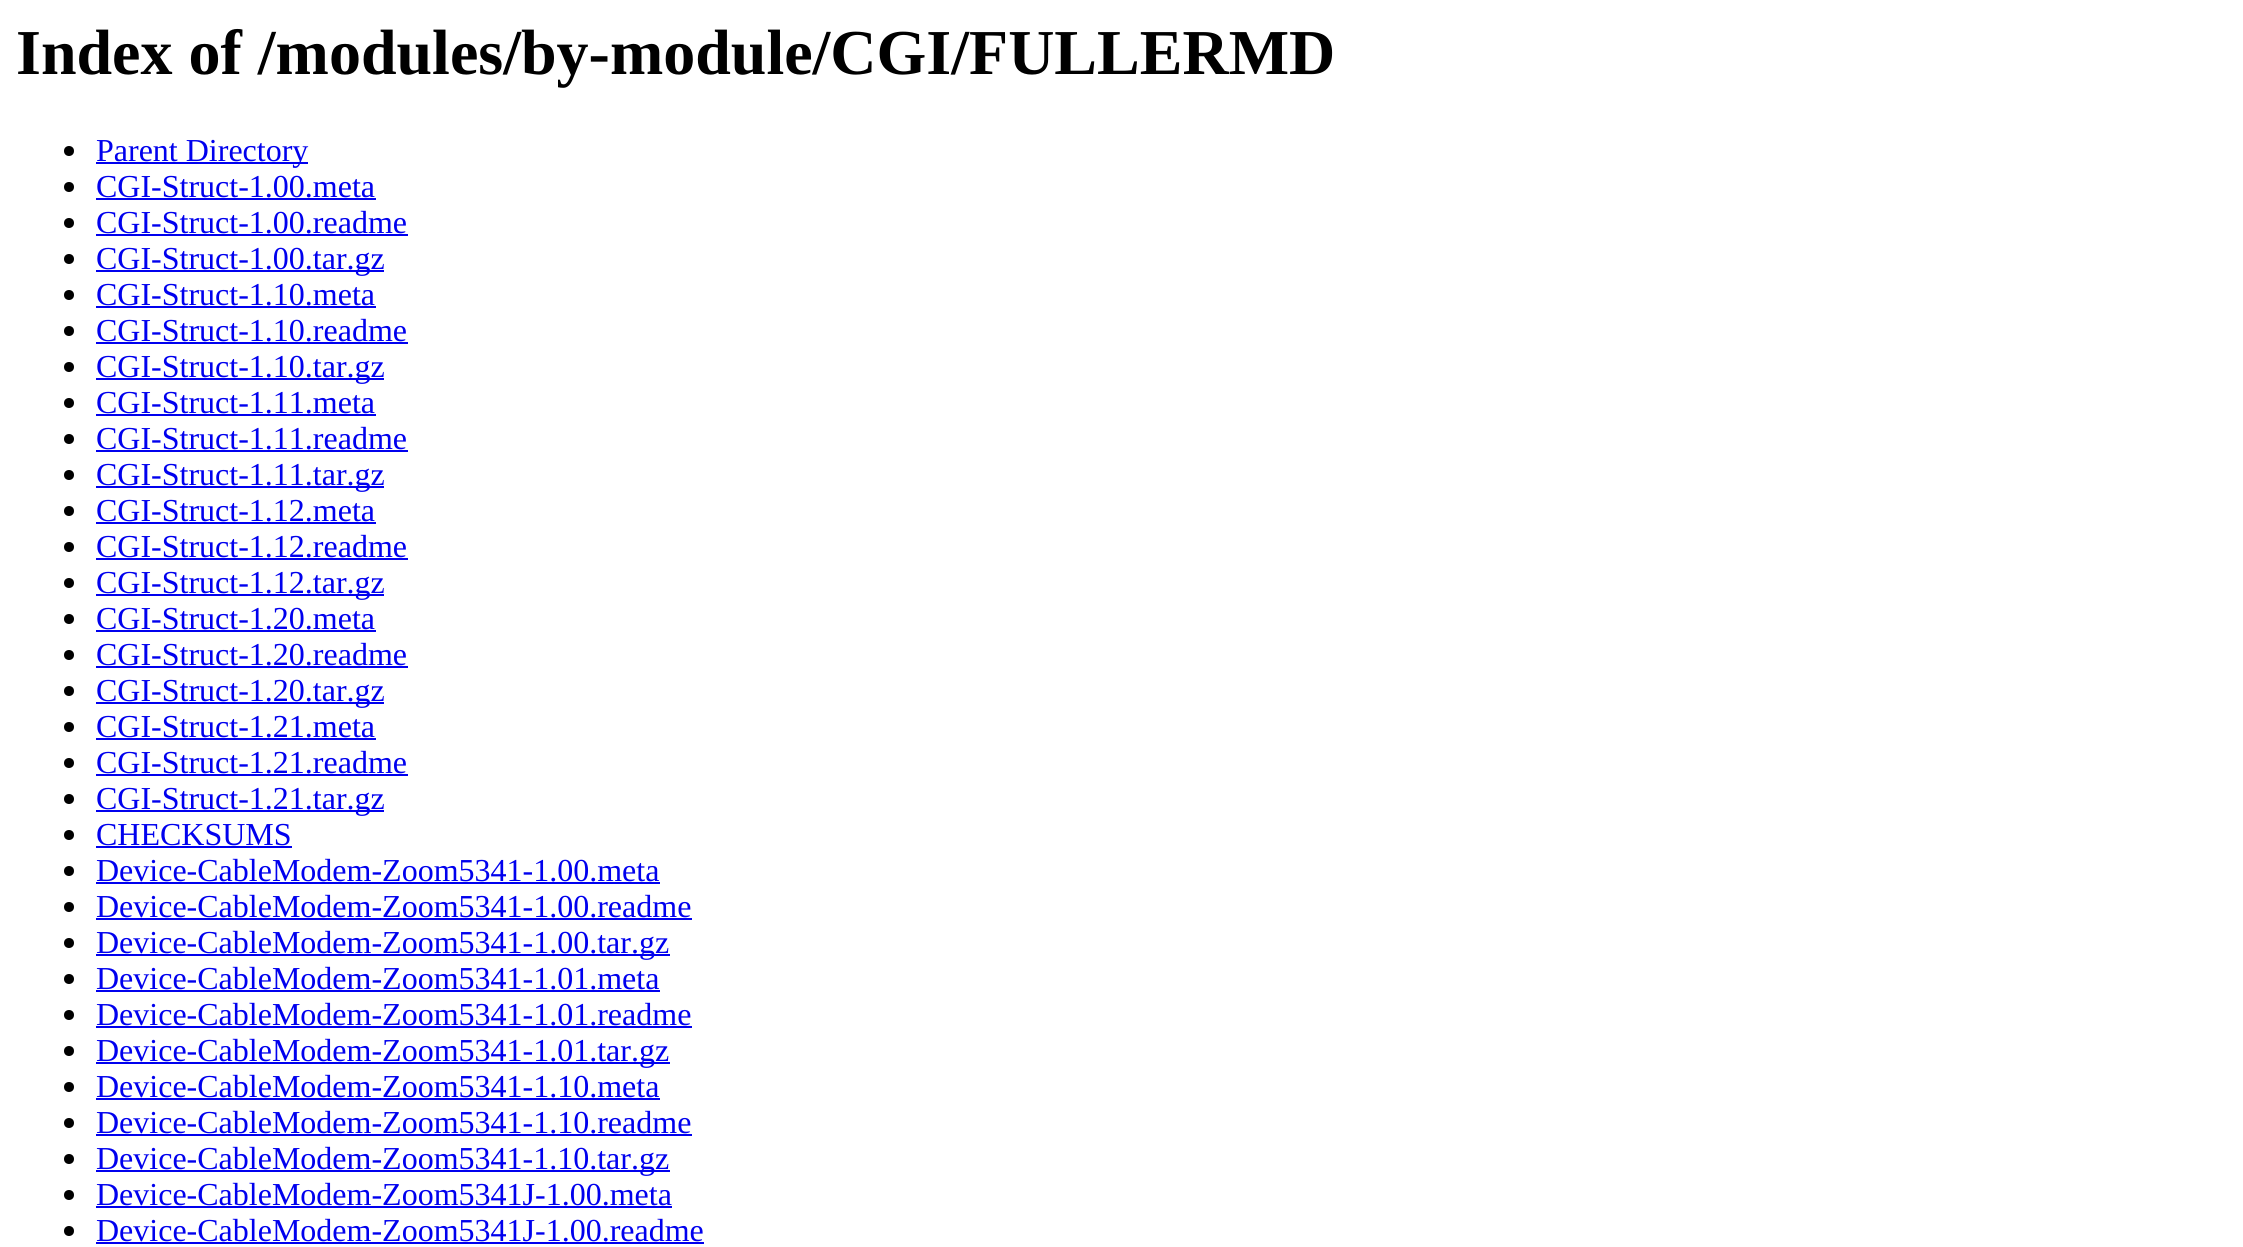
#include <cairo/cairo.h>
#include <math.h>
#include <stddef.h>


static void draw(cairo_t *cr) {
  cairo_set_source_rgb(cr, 1, 1, 1);
  cairo_paint(cr);
  cairo_set_source_rgb(cr, 0, 0, 0);
  cairo_arc(cr, 69, 151, 5, 0, 2 * M_PI);
  cairo_fill(cr);
  cairo_set_source_rgb(cr, 0, 0, 238 / 255.0);
  cairo_rectangle(cr, 96, 162, 212, 2);
  cairo_fill(cr);
  cairo_set_source_rgb(cr, 0, 0, 0);
  cairo_arc(cr, 69, 187, 5, 0, 2 * M_PI);
  cairo_fill(cr);
  cairo_set_source_rgb(cr, 0, 0, 238 / 255.0);
  cairo_rectangle(cr, 96, 198, 280, 2);
  cairo_fill(cr);
  cairo_set_source_rgb(cr, 0, 0, 0);
  cairo_arc(cr, 69, 223, 5, 0, 2 * M_PI);
  cairo_fill(cr);
  cairo_set_source_rgb(cr, 0, 0, 238 / 255.0);
  cairo_rectangle(cr, 96, 234, 312, 2);
  cairo_fill(cr);
  cairo_set_source_rgb(cr, 0, 0, 0);
  cairo_arc(cr, 69, 259, 5, 0, 2 * M_PI);
  cairo_fill(cr);
  cairo_set_source_rgb(cr, 0, 0, 238 / 255.0);
  cairo_rectangle(cr, 96, 270, 288, 2);
  cairo_fill(cr);
  cairo_set_source_rgb(cr, 0, 0, 0);
  cairo_arc(cr, 69, 295, 5, 0, 2 * M_PI);
  cairo_fill(cr);
  cairo_set_source_rgb(cr, 0, 0, 238 / 255.0);
  cairo_rectangle(cr, 96, 306, 280, 2);
  cairo_fill(cr);
  cairo_set_source_rgb(cr, 0, 0, 0);
  cairo_arc(cr, 69, 331, 5, 0, 2 * M_PI);
  cairo_fill(cr);
  cairo_set_source_rgb(cr, 0, 0, 238 / 255.0);
  cairo_rectangle(cr, 96, 342, 312, 2);
  cairo_fill(cr);
  cairo_set_source_rgb(cr, 0, 0, 0);
  cairo_arc(cr, 69, 367, 5, 0, 2 * M_PI);
  cairo_fill(cr);
  cairo_set_source_rgb(cr, 0, 0, 238 / 255.0);
  cairo_rectangle(cr, 96, 378, 288, 2);
  cairo_fill(cr);
  cairo_set_source_rgb(cr, 0, 0, 0);
  cairo_arc(cr, 69, 403, 5, 0, 2 * M_PI);
  cairo_fill(cr);
  cairo_set_source_rgb(cr, 0, 0, 238 / 255.0);
  cairo_rectangle(cr, 96, 414, 280, 2);
  cairo_fill(cr);
  cairo_set_source_rgb(cr, 0, 0, 0);
  cairo_arc(cr, 69, 439, 5, 0, 2 * M_PI);
  cairo_fill(cr);
  cairo_set_source_rgb(cr, 0, 0, 238 / 255.0);
  cairo_rectangle(cr, 96, 450, 312, 2);
  cairo_fill(cr);
  cairo_set_source_rgb(cr, 0, 0, 0);
  cairo_arc(cr, 69, 475, 5, 0, 2 * M_PI);
  cairo_fill(cr);
  cairo_set_source_rgb(cr, 0, 0, 238 / 255.0);
  cairo_rectangle(cr, 96, 486, 288, 2);
  cairo_fill(cr);
  cairo_set_source_rgb(cr, 0, 0, 0);
  cairo_arc(cr, 69, 511, 5, 0, 2 * M_PI);
  cairo_fill(cr);
  cairo_set_source_rgb(cr, 0, 0, 238 / 255.0);
  cairo_rectangle(cr, 96, 522, 280, 2);
  cairo_fill(cr);
  cairo_set_source_rgb(cr, 0, 0, 0);
  cairo_arc(cr, 69, 547, 5, 0, 2 * M_PI);
  cairo_fill(cr);
  cairo_set_source_rgb(cr, 0, 0, 238 / 255.0);
  cairo_rectangle(cr, 96, 558, 312, 2);
  cairo_fill(cr);
  cairo_set_source_rgb(cr, 0, 0, 0);
  cairo_arc(cr, 69, 583, 5, 0, 2 * M_PI);
  cairo_fill(cr);
  cairo_set_source_rgb(cr, 0, 0, 238 / 255.0);
  cairo_rectangle(cr, 96, 594, 288, 2);
  cairo_fill(cr);
  cairo_set_source_rgb(cr, 0, 0, 0);
  cairo_arc(cr, 69, 619, 5, 0, 2 * M_PI);
  cairo_fill(cr);
  cairo_set_source_rgb(cr, 0, 0, 238 / 255.0);
  cairo_rectangle(cr, 96, 630, 280, 2);
  cairo_fill(cr);
  cairo_set_source_rgb(cr, 0, 0, 0);
  cairo_arc(cr, 69, 655, 5, 0, 2 * M_PI);
  cairo_fill(cr);
  cairo_set_source_rgb(cr, 0, 0, 238 / 255.0);
  cairo_rectangle(cr, 96, 666, 312, 2);
  cairo_fill(cr);
  cairo_set_source_rgb(cr, 0, 0, 0);
  cairo_arc(cr, 69, 691, 5, 0, 2 * M_PI);
  cairo_fill(cr);
  cairo_set_source_rgb(cr, 0, 0, 238 / 255.0);
  cairo_rectangle(cr, 96, 702, 288, 2);
  cairo_fill(cr);
  cairo_set_source_rgb(cr, 0, 0, 0);
  cairo_arc(cr, 69, 727, 5, 0, 2 * M_PI);
  cairo_fill(cr);
  cairo_set_source_rgb(cr, 0, 0, 238 / 255.0);
  cairo_rectangle(cr, 96, 738, 280, 2);
  cairo_fill(cr);
  cairo_set_source_rgb(cr, 0, 0, 0);
  cairo_arc(cr, 69, 763, 5, 0, 2 * M_PI);
  cairo_fill(cr);
  cairo_set_source_rgb(cr, 0, 0, 238 / 255.0);
  cairo_rectangle(cr, 96, 774, 312, 2);
  cairo_fill(cr);
  cairo_set_source_rgb(cr, 0, 0, 0);
  cairo_arc(cr, 69, 799, 5, 0, 2 * M_PI);
  cairo_fill(cr);
  cairo_set_source_rgb(cr, 0, 0, 238 / 255.0);
  cairo_rectangle(cr, 96, 810, 288, 2);
  cairo_fill(cr);
  cairo_set_source_rgb(cr, 0, 0, 0);
  cairo_arc(cr, 69, 835, 5, 0, 2 * M_PI);
  cairo_fill(cr);
  cairo_set_source_rgb(cr, 0, 0, 238 / 255.0);
  cairo_rectangle(cr, 96, 846, 196, 2);
  cairo_fill(cr);
  cairo_set_source_rgb(cr, 0, 0, 0);
  cairo_arc(cr, 69, 871, 5, 0, 2 * M_PI);
  cairo_fill(cr);
  cairo_set_source_rgb(cr, 0, 0, 238 / 255.0);
  cairo_rectangle(cr, 96, 882, 564, 2);
  cairo_fill(cr);
  cairo_set_source_rgb(cr, 0, 0, 0);
  cairo_arc(cr, 69, 907, 5, 0, 2 * M_PI);
  cairo_fill(cr);
  cairo_set_source_rgb(cr, 0, 0, 238 / 255.0);
  cairo_rectangle(cr, 96, 918, 596, 2);
  cairo_fill(cr);
  cairo_set_source_rgb(cr, 0, 0, 0);
  cairo_arc(cr, 69, 943, 5, 0, 2 * M_PI);
  cairo_fill(cr);
  cairo_set_source_rgb(cr, 0, 0, 238 / 255.0);
  cairo_rectangle(cr, 96, 954, 574, 2);
  cairo_fill(cr);
  cairo_set_source_rgb(cr, 0, 0, 0);
  cairo_arc(cr, 69, 979, 5, 0, 2 * M_PI);
  cairo_fill(cr);
  cairo_set_source_rgb(cr, 0, 0, 238 / 255.0);
  cairo_rectangle(cr, 96, 990, 564, 2);
  cairo_fill(cr);
  cairo_set_source_rgb(cr, 0, 0, 0);
  cairo_arc(cr, 69, 1015, 5, 0, 2 * M_PI);
  cairo_fill(cr);
  cairo_set_source_rgb(cr, 0, 0, 238 / 255.0);
  cairo_rectangle(cr, 96, 1026, 596, 2);
  cairo_fill(cr);
  cairo_set_source_rgb(cr, 0, 0, 0);
  cairo_arc(cr, 69, 1051, 5, 0, 2 * M_PI);
  cairo_fill(cr);
  cairo_set_source_rgb(cr, 0, 0, 238 / 255.0);
  cairo_rectangle(cr, 96, 1062, 574, 2);
  cairo_fill(cr);
  cairo_set_source_rgb(cr, 0, 0, 0);
  cairo_arc(cr, 69, 1087, 5, 0, 2 * M_PI);
  cairo_fill(cr);
  cairo_set_source_rgb(cr, 0, 0, 238 / 255.0);
  cairo_rectangle(cr, 96, 1098, 564, 2);
  cairo_fill(cr);
  cairo_set_source_rgb(cr, 0, 0, 0);
  cairo_arc(cr, 69, 1123, 5, 0, 2 * M_PI);
  cairo_fill(cr);
  cairo_set_source_rgb(cr, 0, 0, 238 / 255.0);
  cairo_rectangle(cr, 96, 1134, 596, 2);
  cairo_fill(cr);
  cairo_set_source_rgb(cr, 0, 0, 0);
  cairo_arc(cr, 69, 1159, 5, 0, 2 * M_PI);
  cairo_fill(cr);
  cairo_set_source_rgb(cr, 0, 0, 238 / 255.0);
  cairo_rectangle(cr, 96, 1170, 574, 2);
  cairo_fill(cr);
  cairo_set_source_rgb(cr, 0, 0, 0);
  cairo_arc(cr, 69, 1195, 5, 0, 2 * M_PI);
  cairo_fill(cr);
  cairo_set_source_rgb(cr, 0, 0, 238 / 255.0);
  cairo_rectangle(cr, 96, 1206, 576, 2);
  cairo_fill(cr);
  cairo_set_source_rgb(cr, 0, 0, 0);
  cairo_arc(cr, 69, 1231, 5, 0, 2 * M_PI);
  cairo_fill(cr);
  cairo_set_source_rgb(cr, 0, 0, 238 / 255.0);
  cairo_rectangle(cr, 96, 1242, 608, 2);
  cairo_fill(cr);
  cairo_select_font_face(cr, "Liberation Serif", CAIRO_FONT_SLANT_NORMAL, CAIRO_FONT_WEIGHT_BOLD);
  cairo_set_font_size(cr, 64);
  cairo_set_source_rgb(cr, 0, 0, 0);
  cairo_move_to(cr, 16, 74);
  cairo_show_text(cr, "Index of /modules/by-module/CGI/FULLERMD");
  cairo_select_font_face(cr, "Liberation Serif", CAIRO_FONT_SLANT_NORMAL, CAIRO_FONT_WEIGHT_NORMAL);
  cairo_set_font_size(cr, 32);
  cairo_set_source_rgb(cr, 0, 0, 238 / 255.0);
  cairo_move_to(cr, 96, 161);
  cairo_show_text(cr, "Parent Directory");
  cairo_move_to(cr, 96, 197);
  cairo_show_text(cr, "CGI-Struct-1.00.meta");
  cairo_move_to(cr, 96, 233);
  cairo_show_text(cr, "CGI-Struct-1.00.readme");
  cairo_move_to(cr, 96, 269);
  cairo_show_text(cr, "CGI-Struct-1.00.tar.gz");
  cairo_move_to(cr, 96, 305);
  cairo_show_text(cr, "CGI-Struct-1.10.meta");
  cairo_move_to(cr, 96, 341);
  cairo_show_text(cr, "CGI-Struct-1.10.readme");
  cairo_move_to(cr, 96, 377);
  cairo_show_text(cr, "CGI-Struct-1.10.tar.gz");
  cairo_move_to(cr, 96, 413);
  cairo_show_text(cr, "CGI-Struct-1.11.meta");
  cairo_move_to(cr, 96, 449);
  cairo_show_text(cr, "CGI-Struct-1.11.readme");
  cairo_move_to(cr, 96, 485);
  cairo_show_text(cr, "CGI-Struct-1.11.tar.gz");
  cairo_move_to(cr, 96, 521);
  cairo_show_text(cr, "CGI-Struct-1.12.meta");
  cairo_move_to(cr, 96, 557);
  cairo_show_text(cr, "CGI-Struct-1.12.readme");
  cairo_move_to(cr, 96, 593);
  cairo_show_text(cr, "CGI-Struct-1.12.tar.gz");
  cairo_move_to(cr, 96, 629);
  cairo_show_text(cr, "CGI-Struct-1.20.meta");
  cairo_move_to(cr, 96, 665);
  cairo_show_text(cr, "CGI-Struct-1.20.readme");
  cairo_move_to(cr, 96, 701);
  cairo_show_text(cr, "CGI-Struct-1.20.tar.gz");
  cairo_move_to(cr, 96, 737);
  cairo_show_text(cr, "CGI-Struct-1.21.meta");
  cairo_move_to(cr, 96, 773);
  cairo_show_text(cr, "CGI-Struct-1.21.readme");
  cairo_move_to(cr, 96, 809);
  cairo_show_text(cr, "CGI-Struct-1.21.tar.gz");
  cairo_move_to(cr, 96, 845);
  cairo_show_text(cr, "CHECKSUMS");
  cairo_move_to(cr, 96, 881);
  cairo_show_text(cr, "Device-CableModem-Zoom5341-1.00.meta");
  cairo_move_to(cr, 96, 917);
  cairo_show_text(cr, "Device-CableModem-Zoom5341-1.00.readme");
  cairo_move_to(cr, 96, 953);
  cairo_show_text(cr, "Device-CableModem-Zoom5341-1.00.tar.gz");
  cairo_move_to(cr, 96, 989);
  cairo_show_text(cr, "Device-CableModem-Zoom5341-1.01.meta");
  cairo_move_to(cr, 96, 1025);
  cairo_show_text(cr, "Device-CableModem-Zoom5341-1.01.readme");
  cairo_move_to(cr, 96, 1061);
  cairo_show_text(cr, "Device-CableModem-Zoom5341-1.01.tar.gz");
  cairo_move_to(cr, 96, 1097);
  cairo_show_text(cr, "Device-CableModem-Zoom5341-1.10.meta");
  cairo_move_to(cr, 96, 1133);
  cairo_show_text(cr, "Device-CableModem-Zoom5341-1.10.readme");
  cairo_move_to(cr, 96, 1169);
  cairo_show_text(cr, "Device-CableModem-Zoom5341-1.10.tar.gz");
  cairo_move_to(cr, 96, 1205);
  cairo_show_text(cr, "Device-CableModem-Zoom5341J-1.00.meta");
  cairo_move_to(cr, 96, 1241);
  cairo_show_text(cr, "Device-CableModem-Zoom5341J-1.00.readme");
}

int main(void) {
  cairo_surface_t *surface = cairo_image_surface_create(CAIRO_FORMAT_RGB24, 2243, 1247);
  cairo_t *cr = cairo_create(surface);
  cairo_font_options_t *options = cairo_font_options_create();
  cairo_font_options_set_hint_metrics(options, CAIRO_HINT_METRICS_OFF);
  cairo_font_options_set_hint_style(options, CAIRO_HINT_STYLE_NONE);
  cairo_set_font_options(cr, options);
  cairo_set_miter_limit(cr, 4);
  draw(cr);
  cairo_surface_write_to_png(surface, "out.png");
  cairo_font_options_destroy(options);
  cairo_destroy(cr);
  cairo_surface_destroy(surface);
  return 0;
}
